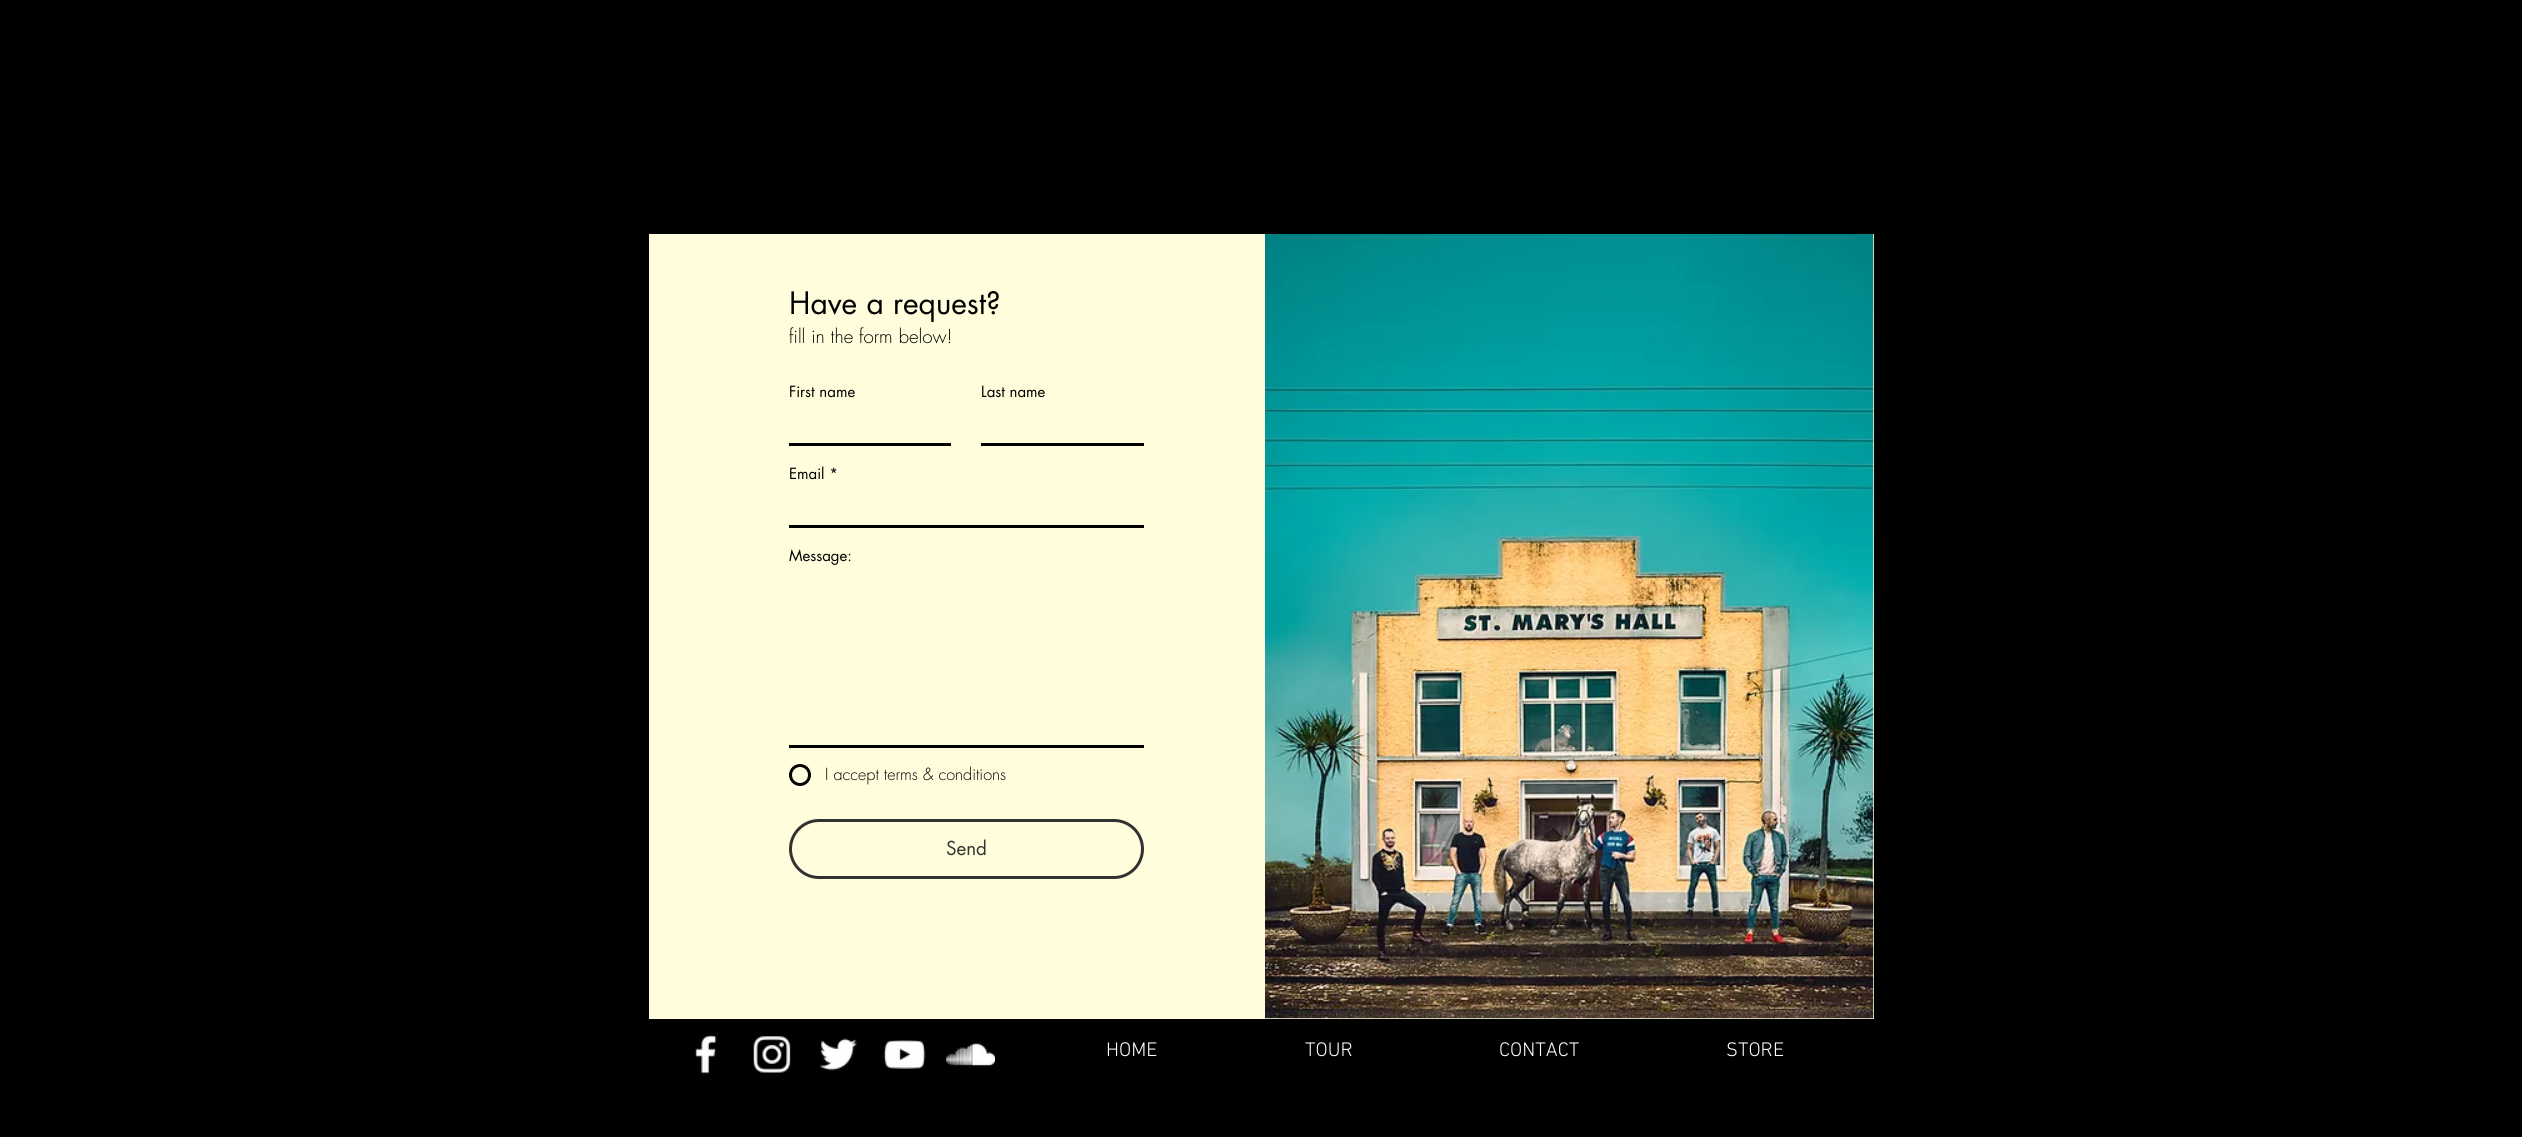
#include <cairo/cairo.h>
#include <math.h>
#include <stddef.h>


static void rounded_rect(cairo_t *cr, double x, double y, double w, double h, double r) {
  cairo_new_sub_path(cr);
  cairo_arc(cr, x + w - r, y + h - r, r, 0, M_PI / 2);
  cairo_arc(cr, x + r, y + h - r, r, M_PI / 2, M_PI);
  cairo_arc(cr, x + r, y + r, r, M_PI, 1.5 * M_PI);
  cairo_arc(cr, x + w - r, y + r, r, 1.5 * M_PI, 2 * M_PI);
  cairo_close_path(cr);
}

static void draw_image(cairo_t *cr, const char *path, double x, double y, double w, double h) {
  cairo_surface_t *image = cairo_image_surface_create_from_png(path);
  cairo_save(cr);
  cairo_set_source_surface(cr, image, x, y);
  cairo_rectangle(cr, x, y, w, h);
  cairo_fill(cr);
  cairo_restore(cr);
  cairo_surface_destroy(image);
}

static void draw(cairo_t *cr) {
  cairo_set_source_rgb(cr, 0, 0, 0);
  cairo_paint(cr);
  cairo_set_source_rgb(cr, 1, 253 / 255.0, 219 / 255.0);
  cairo_rectangle(cr, 649, 234, 1225, 785);
  cairo_fill(cr);
  draw_image(cr, "images/1.png", 1265, 234, 609, 785);
  cairo_set_source_rgb(cr, 0, 0, 0);
  cairo_rectangle(cr, 789, 443, 162, 3);
  cairo_fill(cr);
  cairo_rectangle(cr, 981, 443, 163, 3);
  cairo_fill(cr);
  cairo_rectangle(cr, 789, 525, 355, 3);
  cairo_fill(cr);
  cairo_rectangle(cr, 789, 745, 355, 3);
  cairo_fill(cr);
  cairo_arc(cr, 800, 775, 9.5, 0, 2 * M_PI);
  cairo_set_line_width(cr, 3);
  cairo_stroke(cr);
  rounded_rect(cr, 790.5, 820.5, 352, 57, 28.5);
  cairo_set_source_rgb(cr, 50 / 255.0, 50 / 255.0, 50 / 255.0);
  cairo_stroke(cr);
  draw_image(cr, "images/2.png", 695, 1035, 22, 39);
  draw_image(cr, "images/3.png", 753, 1036, 38, 37);
  draw_image(cr, "images/4.png", 820, 1038, 38, 33);
  draw_image(cr, "images/5.png", 883, 1040, 43, 29);
  draw_image(cr, "images/6.png", 946, 1043, 49, 24);
  cairo_select_font_face(cr, "futura", CAIRO_FONT_SLANT_NORMAL, CAIRO_FONT_WEIGHT_NORMAL);
  cairo_set_font_size(cr, 30);
  cairo_set_source_rgb(cr, 0, 0, 0);
  cairo_move_to(cr, 789, 314);
  cairo_show_text(cr, "Have a request?");
  cairo_select_font_face(cr, "futura Light", CAIRO_FONT_SLANT_NORMAL, CAIRO_FONT_WEIGHT_NORMAL);
  cairo_set_font_size(cr, 18.75);
  cairo_move_to(cr, 789, 343);
  cairo_show_text(cr, "fill in the form below!");
  cairo_select_font_face(cr, "futura", CAIRO_FONT_SLANT_NORMAL, CAIRO_FONT_WEIGHT_NORMAL);
  cairo_set_font_size(cr, 15);
  cairo_move_to(cr, 789, 397);
  cairo_show_text(cr, "First name");
  cairo_move_to(cr, 981, 397);
  cairo_show_text(cr, "Last name");
  cairo_move_to(cr, 789, 479);
  cairo_show_text(cr, "Email *");
  cairo_move_to(cr, 789, 561);
  cairo_show_text(cr, "Message:");
  cairo_select_font_face(cr, "futura Light", CAIRO_FONT_SLANT_NORMAL, CAIRO_FONT_WEIGHT_NORMAL);
  cairo_set_font_size(cr, 16.25);
  cairo_move_to(cr, 825, 780);
  cairo_show_text(cr, "I accept terms & conditions");
  cairo_select_font_face(cr, "futura", CAIRO_FONT_SLANT_NORMAL, CAIRO_FONT_WEIGHT_NORMAL);
  cairo_set_font_size(cr, 18.75);
  cairo_set_source_rgb(cr, 50 / 255.0, 50 / 255.0, 50 / 255.0);
  cairo_move_to(cr, 946, 855);
  cairo_show_text(cr, "Send");
  cairo_select_font_face(cr, "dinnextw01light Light", CAIRO_FONT_SLANT_NORMAL, CAIRO_FONT_WEIGHT_NORMAL);
  cairo_set_font_size(cr, 20);
  cairo_set_source_rgb(cr, 1, 1, 1);
  cairo_move_to(cr, 1106, 1056);
  cairo_show_text(cr, "HOME");
  cairo_move_to(cr, 1305, 1056);
  cairo_show_text(cr, "TOUR");
  cairo_move_to(cr, 1499, 1056);
  cairo_show_text(cr, "CONTACT");
  cairo_move_to(cr, 1726, 1056);
  cairo_show_text(cr, "STORE");
}

int main(void) {
  cairo_surface_t *surface = cairo_image_surface_create(CAIRO_FORMAT_RGB24, 2522, 1137);
  cairo_t *cr = cairo_create(surface);
  cairo_font_options_t *options = cairo_font_options_create();
  cairo_font_options_set_hint_metrics(options, CAIRO_HINT_METRICS_OFF);
  cairo_font_options_set_hint_style(options, CAIRO_HINT_STYLE_NONE);
  cairo_set_font_options(cr, options);
  cairo_set_miter_limit(cr, 4);
  draw(cr);
  cairo_surface_write_to_png(surface, "out.png");
  cairo_font_options_destroy(options);
  cairo_destroy(cr);
  cairo_surface_destroy(surface);
  return 0;
}
